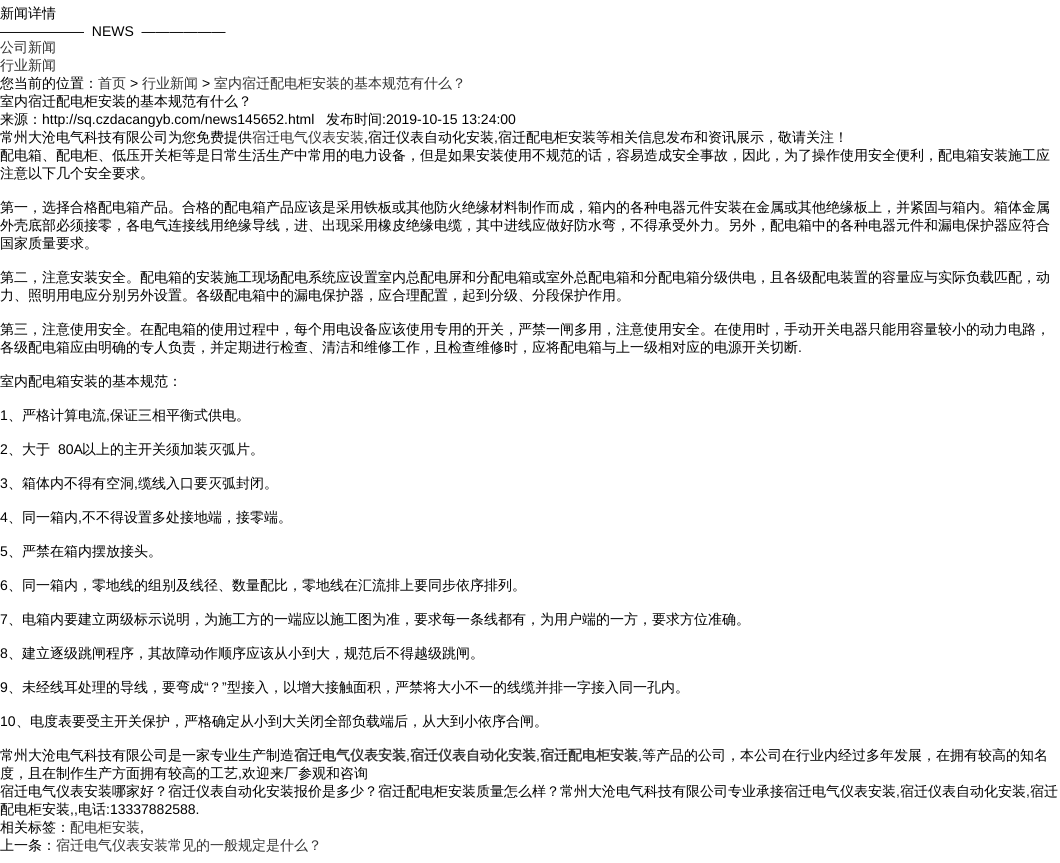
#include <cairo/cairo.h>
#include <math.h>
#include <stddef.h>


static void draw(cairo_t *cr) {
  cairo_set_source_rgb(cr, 1, 1, 1);
  cairo_paint(cr);
  cairo_select_font_face(cr, "WenQuanYi Zen Hei Medium", CAIRO_FONT_SLANT_NORMAL, CAIRO_FONT_WEIGHT_NORMAL);
  cairo_set_font_size(cr, 14);
  cairo_set_source_rgb(cr, 0, 0, 0);
  cairo_move_to(cr, 0, 18);
  cairo_show_text(cr, "新闻详情");
  cairo_select_font_face(cr, "Liberation Sans", CAIRO_FONT_SLANT_NORMAL, CAIRO_FONT_WEIGHT_NORMAL);
  cairo_move_to(cr, 0, 36);
  cairo_show_text(cr, "——————  NEWS  ——————");
  cairo_select_font_face(cr, "WenQuanYi Zen Hei Medium", CAIRO_FONT_SLANT_NORMAL, CAIRO_FONT_WEIGHT_NORMAL);
  cairo_set_source_rgb(cr, 51 / 255.0, 51 / 255.0, 51 / 255.0);
  cairo_move_to(cr, 0, 52);
  cairo_show_text(cr, "公司新闻");
  cairo_move_to(cr, 0, 70);
  cairo_show_text(cr, "行业新闻");
  cairo_set_source_rgb(cr, 0, 0, 0);
  cairo_move_to(cr, 0, 88);
  cairo_show_text(cr, "您当前的位置：");
  cairo_set_source_rgb(cr, 51 / 255.0, 51 / 255.0, 51 / 255.0);
  cairo_move_to(cr, 98, 88);
  cairo_show_text(cr, "首页");
  cairo_select_font_face(cr, "Liberation Sans", CAIRO_FONT_SLANT_NORMAL, CAIRO_FONT_WEIGHT_NORMAL);
  cairo_set_source_rgb(cr, 0, 0, 0);
  cairo_move_to(cr, 130, 88);
  cairo_show_text(cr, ">");
  cairo_select_font_face(cr, "WenQuanYi Zen Hei Medium", CAIRO_FONT_SLANT_NORMAL, CAIRO_FONT_WEIGHT_NORMAL);
  cairo_set_source_rgb(cr, 51 / 255.0, 51 / 255.0, 51 / 255.0);
  cairo_move_to(cr, 142, 88);
  cairo_show_text(cr, "行业新闻");
  cairo_select_font_face(cr, "Liberation Sans", CAIRO_FONT_SLANT_NORMAL, CAIRO_FONT_WEIGHT_NORMAL);
  cairo_set_source_rgb(cr, 0, 0, 0);
  cairo_move_to(cr, 202, 88);
  cairo_show_text(cr, ">");
  cairo_select_font_face(cr, "WenQuanYi Zen Hei Medium", CAIRO_FONT_SLANT_NORMAL, CAIRO_FONT_WEIGHT_NORMAL);
  cairo_set_source_rgb(cr, 51 / 255.0, 51 / 255.0, 51 / 255.0);
  cairo_move_to(cr, 214, 88);
  cairo_show_text(cr, "室内宿迁配电柜安装的基本规范有什么？");
  cairo_set_source_rgb(cr, 0, 0, 0);
  cairo_move_to(cr, 0, 106);
  cairo_show_text(cr, "室内宿迁配电柜安装的基本规范有什么？");
  cairo_move_to(cr, 0, 124);
  cairo_show_text(cr, "来源：");
  cairo_select_font_face(cr, "Liberation Sans", CAIRO_FONT_SLANT_NORMAL, CAIRO_FONT_WEIGHT_NORMAL);
  cairo_move_to(cr, 42, 124);
  cairo_show_text(cr, "http://sq.czdacangyb.com/news145652.html");
  cairo_select_font_face(cr, "WenQuanYi Zen Hei Medium", CAIRO_FONT_SLANT_NORMAL, CAIRO_FONT_WEIGHT_NORMAL);
  cairo_move_to(cr, 326, 124);
  cairo_show_text(cr, "发布时间");
  cairo_select_font_face(cr, "Liberation Sans", CAIRO_FONT_SLANT_NORMAL, CAIRO_FONT_WEIGHT_NORMAL);
  cairo_move_to(cr, 382, 124);
  cairo_show_text(cr, ":2019-10-15 13:24:00");
  cairo_select_font_face(cr, "WenQuanYi Zen Hei Medium", CAIRO_FONT_SLANT_NORMAL, CAIRO_FONT_WEIGHT_NORMAL);
  cairo_move_to(cr, 0, 142);
  cairo_show_text(cr, "常州大沧电气科技有限公司为您免费提供");
  cairo_set_source_rgb(cr, 51 / 255.0, 51 / 255.0, 51 / 255.0);
  cairo_move_to(cr, 252, 142);
  cairo_show_text(cr, "宿迁电气仪表安装");
  cairo_select_font_face(cr, "Liberation Sans", CAIRO_FONT_SLANT_NORMAL, CAIRO_FONT_WEIGHT_NORMAL);
  cairo_set_source_rgb(cr, 0, 0, 0);
  cairo_move_to(cr, 364, 142);
  cairo_show_text(cr, ",");
  cairo_select_font_face(cr, "WenQuanYi Zen Hei Medium", CAIRO_FONT_SLANT_NORMAL, CAIRO_FONT_WEIGHT_NORMAL);
  cairo_move_to(cr, 368, 142);
  cairo_show_text(cr, "宿迁仪表自动化安装");
  cairo_select_font_face(cr, "Liberation Sans", CAIRO_FONT_SLANT_NORMAL, CAIRO_FONT_WEIGHT_NORMAL);
  cairo_move_to(cr, 494, 142);
  cairo_show_text(cr, ",");
  cairo_select_font_face(cr, "WenQuanYi Zen Hei Medium", CAIRO_FONT_SLANT_NORMAL, CAIRO_FONT_WEIGHT_NORMAL);
  cairo_move_to(cr, 498, 142);
  cairo_show_text(cr, "宿迁配电柜安装等相关信息发布和资讯展示，敬请关注！");
  cairo_move_to(cr, 0, 160);
  cairo_show_text(cr, "配电箱、配电柜、低压开关柜等是日常生活生产中常用的电力设备，但是如果安装使用不规范的话，容易造成安全事故，因此，为了操作使用安全便利，配电箱安装施工应");
  cairo_move_to(cr, 0, 178);
  cairo_show_text(cr, "注意以下几个安全要求。");
  cairo_move_to(cr, 0, 212);
  cairo_show_text(cr, "第一，选择合格配电箱产品。合格的配电箱产品应该是采用铁板或其他防火绝缘材料制作而成，箱内的各种电器元件安装在金属或其他绝缘板上，并紧固与箱内。箱体金属");
  cairo_move_to(cr, 0, 230);
  cairo_show_text(cr, "外壳底部必须接零，各电气连接线用绝缘导线，进、出现采用橡皮绝缘电缆，其中进线应做好防水弯，不得承受外力。另外，配电箱中的各种电器元件和漏电保护器应符合");
  cairo_move_to(cr, 0, 248);
  cairo_show_text(cr, "国家质量要求。");
  cairo_move_to(cr, 0, 282);
  cairo_show_text(cr, "第二，注意安装安全。配电箱的安装施工现场配电系统应设置室内总配电屏和分配电箱或室外总配电箱和分配电箱分级供电，且各级配电装置的容量应与实际负载匹配，动");
  cairo_move_to(cr, 0, 300);
  cairo_show_text(cr, "力、照明用电应分别另外设置。各级配电箱中的漏电保护器，应合理配置，起到分级、分段保护作用。");
  cairo_move_to(cr, 0, 334);
  cairo_show_text(cr, "第三，注意使用安全。在配电箱的使用过程中，每个用电设备应该使用专用的开关，严禁一闸多用，注意使用安全。在使用时，手动开关电器只能用容量较小的动力电路，");
  cairo_move_to(cr, 0, 352);
  cairo_show_text(cr, "各级配电箱应由明确的专人负责，并定期进行检查、清洁和维修工作，且检查维修时，应将配电箱与上一级相对应的电源开关切断");
  cairo_select_font_face(cr, "Liberation Sans", CAIRO_FONT_SLANT_NORMAL, CAIRO_FONT_WEIGHT_NORMAL);
  cairo_move_to(cr, 798, 352);
  cairo_show_text(cr, ".");
  cairo_select_font_face(cr, "WenQuanYi Zen Hei Medium", CAIRO_FONT_SLANT_NORMAL, CAIRO_FONT_WEIGHT_NORMAL);
  cairo_move_to(cr, 0, 386);
  cairo_show_text(cr, "室内配电箱安装的基本规范：");
  cairo_select_font_face(cr, "Liberation Sans", CAIRO_FONT_SLANT_NORMAL, CAIRO_FONT_WEIGHT_NORMAL);
  cairo_move_to(cr, 0, 420);
  cairo_show_text(cr, "1");
  cairo_select_font_face(cr, "WenQuanYi Zen Hei Medium", CAIRO_FONT_SLANT_NORMAL, CAIRO_FONT_WEIGHT_NORMAL);
  cairo_move_to(cr, 8, 420);
  cairo_show_text(cr, "、严格计算电流");
  cairo_select_font_face(cr, "Liberation Sans", CAIRO_FONT_SLANT_NORMAL, CAIRO_FONT_WEIGHT_NORMAL);
  cairo_move_to(cr, 106, 420);
  cairo_show_text(cr, ",");
  cairo_select_font_face(cr, "WenQuanYi Zen Hei Medium", CAIRO_FONT_SLANT_NORMAL, CAIRO_FONT_WEIGHT_NORMAL);
  cairo_move_to(cr, 110, 420);
  cairo_show_text(cr, "保证三相平衡式供电。");
  cairo_select_font_face(cr, "Liberation Sans", CAIRO_FONT_SLANT_NORMAL, CAIRO_FONT_WEIGHT_NORMAL);
  cairo_move_to(cr, 0, 454);
  cairo_show_text(cr, "2");
  cairo_select_font_face(cr, "WenQuanYi Zen Hei Medium", CAIRO_FONT_SLANT_NORMAL, CAIRO_FONT_WEIGHT_NORMAL);
  cairo_move_to(cr, 8, 454);
  cairo_show_text(cr, "、大于");
  cairo_select_font_face(cr, "Liberation Sans", CAIRO_FONT_SLANT_NORMAL, CAIRO_FONT_WEIGHT_NORMAL);
  cairo_move_to(cr, 58, 454);
  cairo_show_text(cr, "80A");
  cairo_select_font_face(cr, "WenQuanYi Zen Hei Medium", CAIRO_FONT_SLANT_NORMAL, CAIRO_FONT_WEIGHT_NORMAL);
  cairo_move_to(cr, 82, 454);
  cairo_show_text(cr, "以上的主开关须加装灭弧片。");
  cairo_select_font_face(cr, "Liberation Sans", CAIRO_FONT_SLANT_NORMAL, CAIRO_FONT_WEIGHT_NORMAL);
  cairo_move_to(cr, 0, 488);
  cairo_show_text(cr, "3");
  cairo_select_font_face(cr, "WenQuanYi Zen Hei Medium", CAIRO_FONT_SLANT_NORMAL, CAIRO_FONT_WEIGHT_NORMAL);
  cairo_move_to(cr, 8, 488);
  cairo_show_text(cr, "、箱体内不得有空洞");
  cairo_select_font_face(cr, "Liberation Sans", CAIRO_FONT_SLANT_NORMAL, CAIRO_FONT_WEIGHT_NORMAL);
  cairo_move_to(cr, 134, 488);
  cairo_show_text(cr, ",");
  cairo_select_font_face(cr, "WenQuanYi Zen Hei Medium", CAIRO_FONT_SLANT_NORMAL, CAIRO_FONT_WEIGHT_NORMAL);
  cairo_move_to(cr, 138, 488);
  cairo_show_text(cr, "缆线入口要灭弧封闭。");
  cairo_select_font_face(cr, "Liberation Sans", CAIRO_FONT_SLANT_NORMAL, CAIRO_FONT_WEIGHT_NORMAL);
  cairo_move_to(cr, 0, 522);
  cairo_show_text(cr, "4");
  cairo_select_font_face(cr, "WenQuanYi Zen Hei Medium", CAIRO_FONT_SLANT_NORMAL, CAIRO_FONT_WEIGHT_NORMAL);
  cairo_move_to(cr, 8, 522);
  cairo_show_text(cr, "、同一箱内");
  cairo_select_font_face(cr, "Liberation Sans", CAIRO_FONT_SLANT_NORMAL, CAIRO_FONT_WEIGHT_NORMAL);
  cairo_move_to(cr, 78, 522);
  cairo_show_text(cr, ",");
  cairo_select_font_face(cr, "WenQuanYi Zen Hei Medium", CAIRO_FONT_SLANT_NORMAL, CAIRO_FONT_WEIGHT_NORMAL);
  cairo_move_to(cr, 82, 522);
  cairo_show_text(cr, "不不得设置多处接地端，接零端。");
  cairo_select_font_face(cr, "Liberation Sans", CAIRO_FONT_SLANT_NORMAL, CAIRO_FONT_WEIGHT_NORMAL);
  cairo_move_to(cr, 0, 556);
  cairo_show_text(cr, "5");
  cairo_select_font_face(cr, "WenQuanYi Zen Hei Medium", CAIRO_FONT_SLANT_NORMAL, CAIRO_FONT_WEIGHT_NORMAL);
  cairo_move_to(cr, 8, 556);
  cairo_show_text(cr, "、严禁在箱内摆放接头。");
  cairo_select_font_face(cr, "Liberation Sans", CAIRO_FONT_SLANT_NORMAL, CAIRO_FONT_WEIGHT_NORMAL);
  cairo_move_to(cr, 0, 590);
  cairo_show_text(cr, "6");
  cairo_select_font_face(cr, "WenQuanYi Zen Hei Medium", CAIRO_FONT_SLANT_NORMAL, CAIRO_FONT_WEIGHT_NORMAL);
  cairo_move_to(cr, 8, 590);
  cairo_show_text(cr, "、同一箱内，零地线的组别及线径、数量配比，零地线在汇流排上要同步依序排列。");
  cairo_select_font_face(cr, "Liberation Sans", CAIRO_FONT_SLANT_NORMAL, CAIRO_FONT_WEIGHT_NORMAL);
  cairo_move_to(cr, 0, 624);
  cairo_show_text(cr, "7");
  cairo_select_font_face(cr, "WenQuanYi Zen Hei Medium", CAIRO_FONT_SLANT_NORMAL, CAIRO_FONT_WEIGHT_NORMAL);
  cairo_move_to(cr, 8, 624);
  cairo_show_text(cr, "、电箱内要建立两级标示说明，为施工方的一端应以施工图为准，要求每一条线都有，为用户端的一方，要求方位准确。");
  cairo_select_font_face(cr, "Liberation Sans", CAIRO_FONT_SLANT_NORMAL, CAIRO_FONT_WEIGHT_NORMAL);
  cairo_move_to(cr, 0, 658);
  cairo_show_text(cr, "8");
  cairo_select_font_face(cr, "WenQuanYi Zen Hei Medium", CAIRO_FONT_SLANT_NORMAL, CAIRO_FONT_WEIGHT_NORMAL);
  cairo_move_to(cr, 8, 658);
  cairo_show_text(cr, "、建立逐级跳闸程序，其故障动作顺序应该从小到大，规范后不得越级跳闸。");
  cairo_select_font_face(cr, "Liberation Sans", CAIRO_FONT_SLANT_NORMAL, CAIRO_FONT_WEIGHT_NORMAL);
  cairo_move_to(cr, 0, 692);
  cairo_show_text(cr, "9");
  cairo_select_font_face(cr, "WenQuanYi Zen Hei Medium", CAIRO_FONT_SLANT_NORMAL, CAIRO_FONT_WEIGHT_NORMAL);
  cairo_move_to(cr, 8, 692);
  cairo_show_text(cr, "、未经线耳处理的导线，要弯成");
  cairo_select_font_face(cr, "Liberation Sans", CAIRO_FONT_SLANT_NORMAL, CAIRO_FONT_WEIGHT_NORMAL);
  cairo_move_to(cr, 204, 692);
  cairo_show_text(cr, "“");
  cairo_select_font_face(cr, "WenQuanYi Zen Hei Medium", CAIRO_FONT_SLANT_NORMAL, CAIRO_FONT_WEIGHT_NORMAL);
  cairo_move_to(cr, 208, 692);
  cairo_show_text(cr, "？");
  cairo_select_font_face(cr, "Liberation Sans", CAIRO_FONT_SLANT_NORMAL, CAIRO_FONT_WEIGHT_NORMAL);
  cairo_move_to(cr, 222, 692);
  cairo_show_text(cr, "”");
  cairo_select_font_face(cr, "WenQuanYi Zen Hei Medium", CAIRO_FONT_SLANT_NORMAL, CAIRO_FONT_WEIGHT_NORMAL);
  cairo_move_to(cr, 227, 692);
  cairo_show_text(cr, "型接入，以增大接触面积，严禁将大小不一的线缆并排一字接入同一孔内。");
  cairo_select_font_face(cr, "Liberation Sans", CAIRO_FONT_SLANT_NORMAL, CAIRO_FONT_WEIGHT_NORMAL);
  cairo_move_to(cr, 0, 726);
  cairo_show_text(cr, "10");
  cairo_select_font_face(cr, "WenQuanYi Zen Hei Medium", CAIRO_FONT_SLANT_NORMAL, CAIRO_FONT_WEIGHT_NORMAL);
  cairo_move_to(cr, 16, 726);
  cairo_show_text(cr, "、电度表要受主开关保护，严格确定从小到大关闭全部负载端后，从大到小依序合闸。");
  cairo_move_to(cr, 0, 760);
  cairo_show_text(cr, "常州大沧电气科技有限公司是一家专业生产制造");
  cairo_select_font_face(cr, "WenQuanYi Zen Hei", CAIRO_FONT_SLANT_NORMAL, CAIRO_FONT_WEIGHT_BOLD);
  cairo_set_source_rgb(cr, 51 / 255.0, 51 / 255.0, 51 / 255.0);
  cairo_move_to(cr, 294, 760);
  cairo_show_text(cr, "宿迁电气仪表安装");
  cairo_select_font_face(cr, "Liberation Sans", CAIRO_FONT_SLANT_NORMAL, CAIRO_FONT_WEIGHT_NORMAL);
  cairo_set_source_rgb(cr, 0, 0, 0);
  cairo_move_to(cr, 406, 760);
  cairo_show_text(cr, ",");
  cairo_select_font_face(cr, "WenQuanYi Zen Hei", CAIRO_FONT_SLANT_NORMAL, CAIRO_FONT_WEIGHT_BOLD);
  cairo_set_source_rgb(cr, 51 / 255.0, 51 / 255.0, 51 / 255.0);
  cairo_move_to(cr, 410, 760);
  cairo_show_text(cr, "宿迁仪表自动化安装");
  cairo_select_font_face(cr, "Liberation Sans", CAIRO_FONT_SLANT_NORMAL, CAIRO_FONT_WEIGHT_NORMAL);
  cairo_set_source_rgb(cr, 0, 0, 0);
  cairo_move_to(cr, 536, 760);
  cairo_show_text(cr, ",");
  cairo_select_font_face(cr, "WenQuanYi Zen Hei", CAIRO_FONT_SLANT_NORMAL, CAIRO_FONT_WEIGHT_BOLD);
  cairo_set_source_rgb(cr, 51 / 255.0, 51 / 255.0, 51 / 255.0);
  cairo_move_to(cr, 540, 760);
  cairo_show_text(cr, "宿迁配电柜安装");
  cairo_select_font_face(cr, "Liberation Sans", CAIRO_FONT_SLANT_NORMAL, CAIRO_FONT_WEIGHT_NORMAL);
  cairo_set_source_rgb(cr, 0, 0, 0);
  cairo_move_to(cr, 638, 760);
  cairo_show_text(cr, ",");
  cairo_select_font_face(cr, "WenQuanYi Zen Hei Medium", CAIRO_FONT_SLANT_NORMAL, CAIRO_FONT_WEIGHT_NORMAL);
  cairo_move_to(cr, 642, 760);
  cairo_show_text(cr, "等产品的公司，本公司在行业内经过多年发展，在拥有较高的知名");
  cairo_move_to(cr, 0, 778);
  cairo_show_text(cr, "度，且在制作生产方面拥有较高的工艺");
  cairo_select_font_face(cr, "Liberation Sans", CAIRO_FONT_SLANT_NORMAL, CAIRO_FONT_WEIGHT_NORMAL);
  cairo_move_to(cr, 238, 778);
  cairo_show_text(cr, ",");
  cairo_select_font_face(cr, "WenQuanYi Zen Hei Medium", CAIRO_FONT_SLANT_NORMAL, CAIRO_FONT_WEIGHT_NORMAL);
  cairo_move_to(cr, 242, 778);
  cairo_show_text(cr, "欢迎来厂参观和咨询");
  cairo_move_to(cr, 0, 796);
  cairo_show_text(cr, "宿迁电气仪表安装哪家好？宿迁仪表自动化安装报价是多少？宿迁配电柜安装质量怎么样？常州大沧电气科技有限公司专业承接宿迁电气仪表安装");
  cairo_select_font_face(cr, "Liberation Sans", CAIRO_FONT_SLANT_NORMAL, CAIRO_FONT_WEIGHT_NORMAL);
  cairo_move_to(cr, 896, 796);
  cairo_show_text(cr, ",");
  cairo_select_font_face(cr, "WenQuanYi Zen Hei Medium", CAIRO_FONT_SLANT_NORMAL, CAIRO_FONT_WEIGHT_NORMAL);
  cairo_move_to(cr, 900, 796);
  cairo_show_text(cr, "宿迁仪表自动化安装");
  cairo_select_font_face(cr, "Liberation Sans", CAIRO_FONT_SLANT_NORMAL, CAIRO_FONT_WEIGHT_NORMAL);
  cairo_move_to(cr, 1026, 796);
  cairo_show_text(cr, ",");
  cairo_select_font_face(cr, "WenQuanYi Zen Hei Medium", CAIRO_FONT_SLANT_NORMAL, CAIRO_FONT_WEIGHT_NORMAL);
  cairo_move_to(cr, 1030, 796);
  cairo_show_text(cr, "宿迁");
  cairo_move_to(cr, 0, 814);
  cairo_show_text(cr, "配电柜安装");
  cairo_select_font_face(cr, "Liberation Sans", CAIRO_FONT_SLANT_NORMAL, CAIRO_FONT_WEIGHT_NORMAL);
  cairo_move_to(cr, 70, 814);
  cairo_show_text(cr, ",,");
  cairo_select_font_face(cr, "WenQuanYi Zen Hei Medium", CAIRO_FONT_SLANT_NORMAL, CAIRO_FONT_WEIGHT_NORMAL);
  cairo_move_to(cr, 78, 814);
  cairo_show_text(cr, "电话");
  cairo_select_font_face(cr, "Liberation Sans", CAIRO_FONT_SLANT_NORMAL, CAIRO_FONT_WEIGHT_NORMAL);
  cairo_move_to(cr, 106, 814);
  cairo_show_text(cr, ":13337882588.");
  cairo_select_font_face(cr, "WenQuanYi Zen Hei Medium", CAIRO_FONT_SLANT_NORMAL, CAIRO_FONT_WEIGHT_NORMAL);
  cairo_move_to(cr, 0, 832);
  cairo_show_text(cr, "相关标签：");
  cairo_set_source_rgb(cr, 51 / 255.0, 51 / 255.0, 51 / 255.0);
  cairo_move_to(cr, 70, 832);
  cairo_show_text(cr, "配电柜安装");
  cairo_select_font_face(cr, "Liberation Sans", CAIRO_FONT_SLANT_NORMAL, CAIRO_FONT_WEIGHT_NORMAL);
  cairo_set_source_rgb(cr, 0, 0, 0);
  cairo_move_to(cr, 140, 832);
  cairo_show_text(cr, ",");
  cairo_select_font_face(cr, "WenQuanYi Zen Hei Medium", CAIRO_FONT_SLANT_NORMAL, CAIRO_FONT_WEIGHT_NORMAL);
  cairo_move_to(cr, 0, 850);
  cairo_show_text(cr, "上一条：");
  cairo_set_source_rgb(cr, 51 / 255.0, 51 / 255.0, 51 / 255.0);
  cairo_move_to(cr, 56, 850);
  cairo_show_text(cr, "宿迁电气仪表安装常见的一般规定是什么？");
}

int main(void) {
  cairo_surface_t *surface = cairo_image_surface_create(CAIRO_FORMAT_RGB24, 1060, 863);
  cairo_t *cr = cairo_create(surface);
  cairo_font_options_t *options = cairo_font_options_create();
  cairo_font_options_set_hint_metrics(options, CAIRO_HINT_METRICS_OFF);
  cairo_font_options_set_hint_style(options, CAIRO_HINT_STYLE_NONE);
  cairo_set_font_options(cr, options);
  cairo_set_miter_limit(cr, 4);
  draw(cr);
  cairo_surface_write_to_png(surface, "out.png");
  cairo_font_options_destroy(options);
  cairo_destroy(cr);
  cairo_surface_destroy(surface);
  return 0;
}
